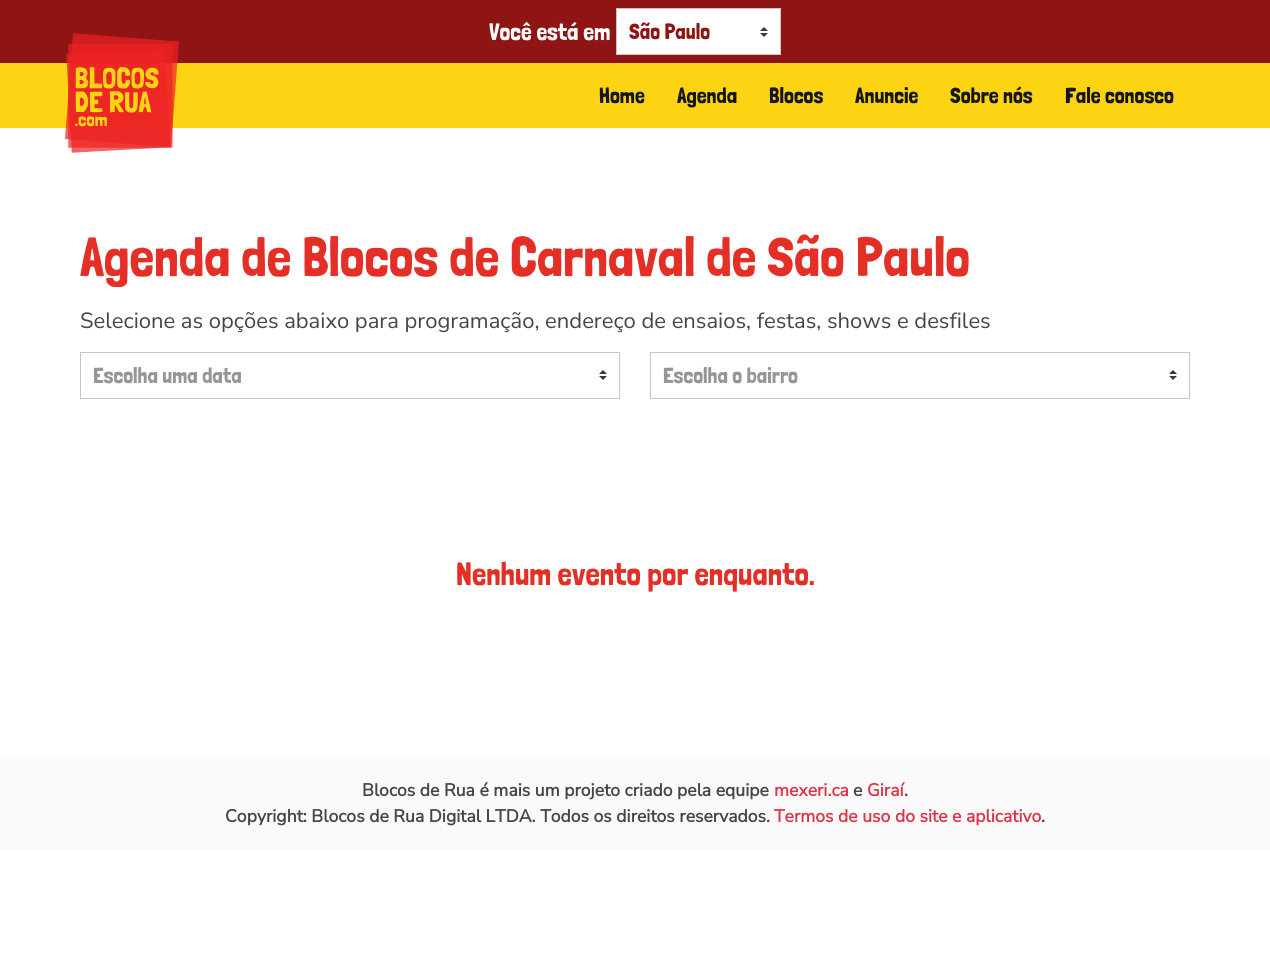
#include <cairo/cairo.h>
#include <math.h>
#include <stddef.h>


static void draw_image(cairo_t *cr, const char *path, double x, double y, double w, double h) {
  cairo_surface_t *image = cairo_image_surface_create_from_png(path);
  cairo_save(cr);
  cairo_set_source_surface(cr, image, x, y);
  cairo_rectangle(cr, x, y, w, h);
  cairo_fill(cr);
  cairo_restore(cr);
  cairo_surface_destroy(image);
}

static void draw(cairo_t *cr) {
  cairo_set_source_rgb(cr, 1, 1, 1);
  cairo_paint(cr);
  cairo_set_source_rgb(cr, 143 / 255.0, 21 / 255.0, 21 / 255.0);
  cairo_rectangle(cr, 0, 0, 1270, 63);
  cairo_fill(cr);
  cairo_set_source_rgb(cr, 1, 1, 1);
  cairo_rectangle(cr, 617, 9, 163, 45);
  cairo_fill(cr);
  draw_image(cr, "images/1.png", 760, 27, 8, 10);
  cairo_rectangle(cr, 616.5, 8.5, 164, 46);
  cairo_set_source_rgb(cr, 199 / 255.0, 199 / 255.0, 199 / 255.0);
  cairo_set_line_width(cr, 1);
  cairo_stroke(cr);
  cairo_set_source_rgb(cr, 252 / 255.0, 212 / 255.0, 20 / 255.0);
  cairo_rectangle(cr, 0, 63, 1270, 65);
  cairo_fill(cr);
  draw_image(cr, "images/2.png", 65, 33, 114, 120);
  draw_image(cr, "images/1.png", 599, 370, 8, 10);
  cairo_rectangle(cr, 80.5, 352.5, 539, 46);
  cairo_set_source_rgb(cr, 199 / 255.0, 199 / 255.0, 199 / 255.0);
  cairo_stroke(cr);
  draw_image(cr, "images/1.png", 1169, 370, 8, 10);
  cairo_rectangle(cr, 650.5, 352.5, 539, 46);
  cairo_stroke(cr);
  cairo_set_source_rgb(cr, 250 / 255.0, 250 / 255.0, 250 / 255.0);
  cairo_rectangle(cr, 0, 757, 1270, 93);
  cairo_fill(cr);
  cairo_select_font_face(cr, "Londrina Solid", CAIRO_FONT_SLANT_NORMAL, CAIRO_FONT_WEIGHT_NORMAL);
  cairo_set_font_size(cr, 24);
  cairo_set_source_rgb(cr, 1, 1, 1);
  cairo_move_to(cr, 489, 40);
  cairo_show_text(cr, "Você está em");
  cairo_set_font_size(cr, 22);
  cairo_set_source_rgb(cr, 143 / 255.0, 21 / 255.0, 21 / 255.0);
  cairo_move_to(cr, 629, 39);
  cairo_show_text(cr, "São Paulo");
  cairo_set_source_rgb(cr, 23 / 255.0, 22 / 255.0, 22 / 255.0);
  cairo_move_to(cr, 599, 103);
  cairo_show_text(cr, "Home");
  cairo_move_to(cr, 677, 103);
  cairo_show_text(cr, "Agenda");
  cairo_move_to(cr, 769, 103);
  cairo_show_text(cr, "Blocos");
  cairo_move_to(cr, 855, 103);
  cairo_show_text(cr, "Anuncie");
  cairo_move_to(cr, 950, 103);
  cairo_show_text(cr, "Sobre nós");
  cairo_move_to(cr, 1065, 103);
  cairo_show_text(cr, "Fale conosco");
  cairo_set_font_size(cr, 55);
  cairo_set_source_rgb(cr, 228 / 255.0, 47 / 255.0, 39 / 255.0);
  cairo_move_to(cr, 80, 276);
  cairo_show_text(cr, "Agenda de Blocos de Carnaval de São Paulo");
  cairo_select_font_face(cr, "Nunito Sans ExtraLight", CAIRO_FONT_SLANT_NORMAL, CAIRO_FONT_WEIGHT_NORMAL);
  cairo_set_font_size(cr, 22);
  cairo_set_source_rgb(cr, 69 / 255.0, 69 / 255.0, 69 / 255.0);
  cairo_move_to(cr, 80, 328);
  cairo_show_text(cr, "Selecione as opções abaixo para programação, endereço de ensaios, festas, shows e desfiles");
  cairo_select_font_face(cr, "Londrina Solid", CAIRO_FONT_SLANT_NORMAL, CAIRO_FONT_WEIGHT_NORMAL);
  cairo_set_source_rgb(cr, 150 / 255.0, 150 / 255.0, 150 / 255.0);
  cairo_move_to(cr, 93, 383);
  cairo_show_text(cr, "Escolha uma data");
  cairo_move_to(cr, 663, 383);
  cairo_show_text(cr, "Escolha o bairro");
  cairo_set_font_size(cr, 32);
  cairo_set_source_rgb(cr, 228 / 255.0, 47 / 255.0, 39 / 255.0);
  cairo_move_to(cr, 456, 585);
  cairo_show_text(cr, "Nenhum evento por enquanto.");
  cairo_select_font_face(cr, "Nunito Sans", CAIRO_FONT_SLANT_NORMAL, CAIRO_FONT_WEIGHT_BOLD);
  cairo_set_font_size(cr, 17.6);
  cairo_set_source_rgb(cr, 69 / 255.0, 69 / 255.0, 69 / 255.0);
  cairo_move_to(cr, 362, 796);
  cairo_show_text(cr, "Blocos de Rua é mais um projeto criado pela equipe");
  cairo_set_source_rgb(cr, 220 / 255.0, 53 / 255.0, 69 / 255.0);
  cairo_move_to(cr, 774, 796);
  cairo_show_text(cr, "mexeri.ca");
  cairo_set_source_rgb(cr, 69 / 255.0, 69 / 255.0, 69 / 255.0);
  cairo_move_to(cr, 853, 796);
  cairo_show_text(cr, "e");
  cairo_set_source_rgb(cr, 220 / 255.0, 53 / 255.0, 69 / 255.0);
  cairo_move_to(cr, 867, 796);
  cairo_show_text(cr, "Giraí");
  cairo_set_source_rgb(cr, 69 / 255.0, 69 / 255.0, 69 / 255.0);
  cairo_move_to(cr, 904, 796);
  cairo_show_text(cr, ".");
  cairo_move_to(cr, 225, 822);
  cairo_show_text(cr, "Copyright: Blocos de Rua Digital LTDA. Todos os direitos reservados.");
  cairo_set_source_rgb(cr, 220 / 255.0, 53 / 255.0, 69 / 255.0);
  cairo_move_to(cr, 774, 822);
  cairo_show_text(cr, "Termos de uso do site e aplicativo");
  cairo_set_source_rgb(cr, 69 / 255.0, 69 / 255.0, 69 / 255.0);
  cairo_move_to(cr, 1041, 822);
  cairo_show_text(cr, ".");
}

int main(void) {
  cairo_surface_t *surface = cairo_image_surface_create(CAIRO_FORMAT_RGB24, 1270, 965);
  cairo_t *cr = cairo_create(surface);
  cairo_font_options_t *options = cairo_font_options_create();
  cairo_font_options_set_hint_metrics(options, CAIRO_HINT_METRICS_OFF);
  cairo_font_options_set_hint_style(options, CAIRO_HINT_STYLE_NONE);
  cairo_set_font_options(cr, options);
  cairo_set_miter_limit(cr, 4);
  draw(cr);
  cairo_surface_write_to_png(surface, "out.png");
  cairo_font_options_destroy(options);
  cairo_destroy(cr);
  cairo_surface_destroy(surface);
  return 0;
}
